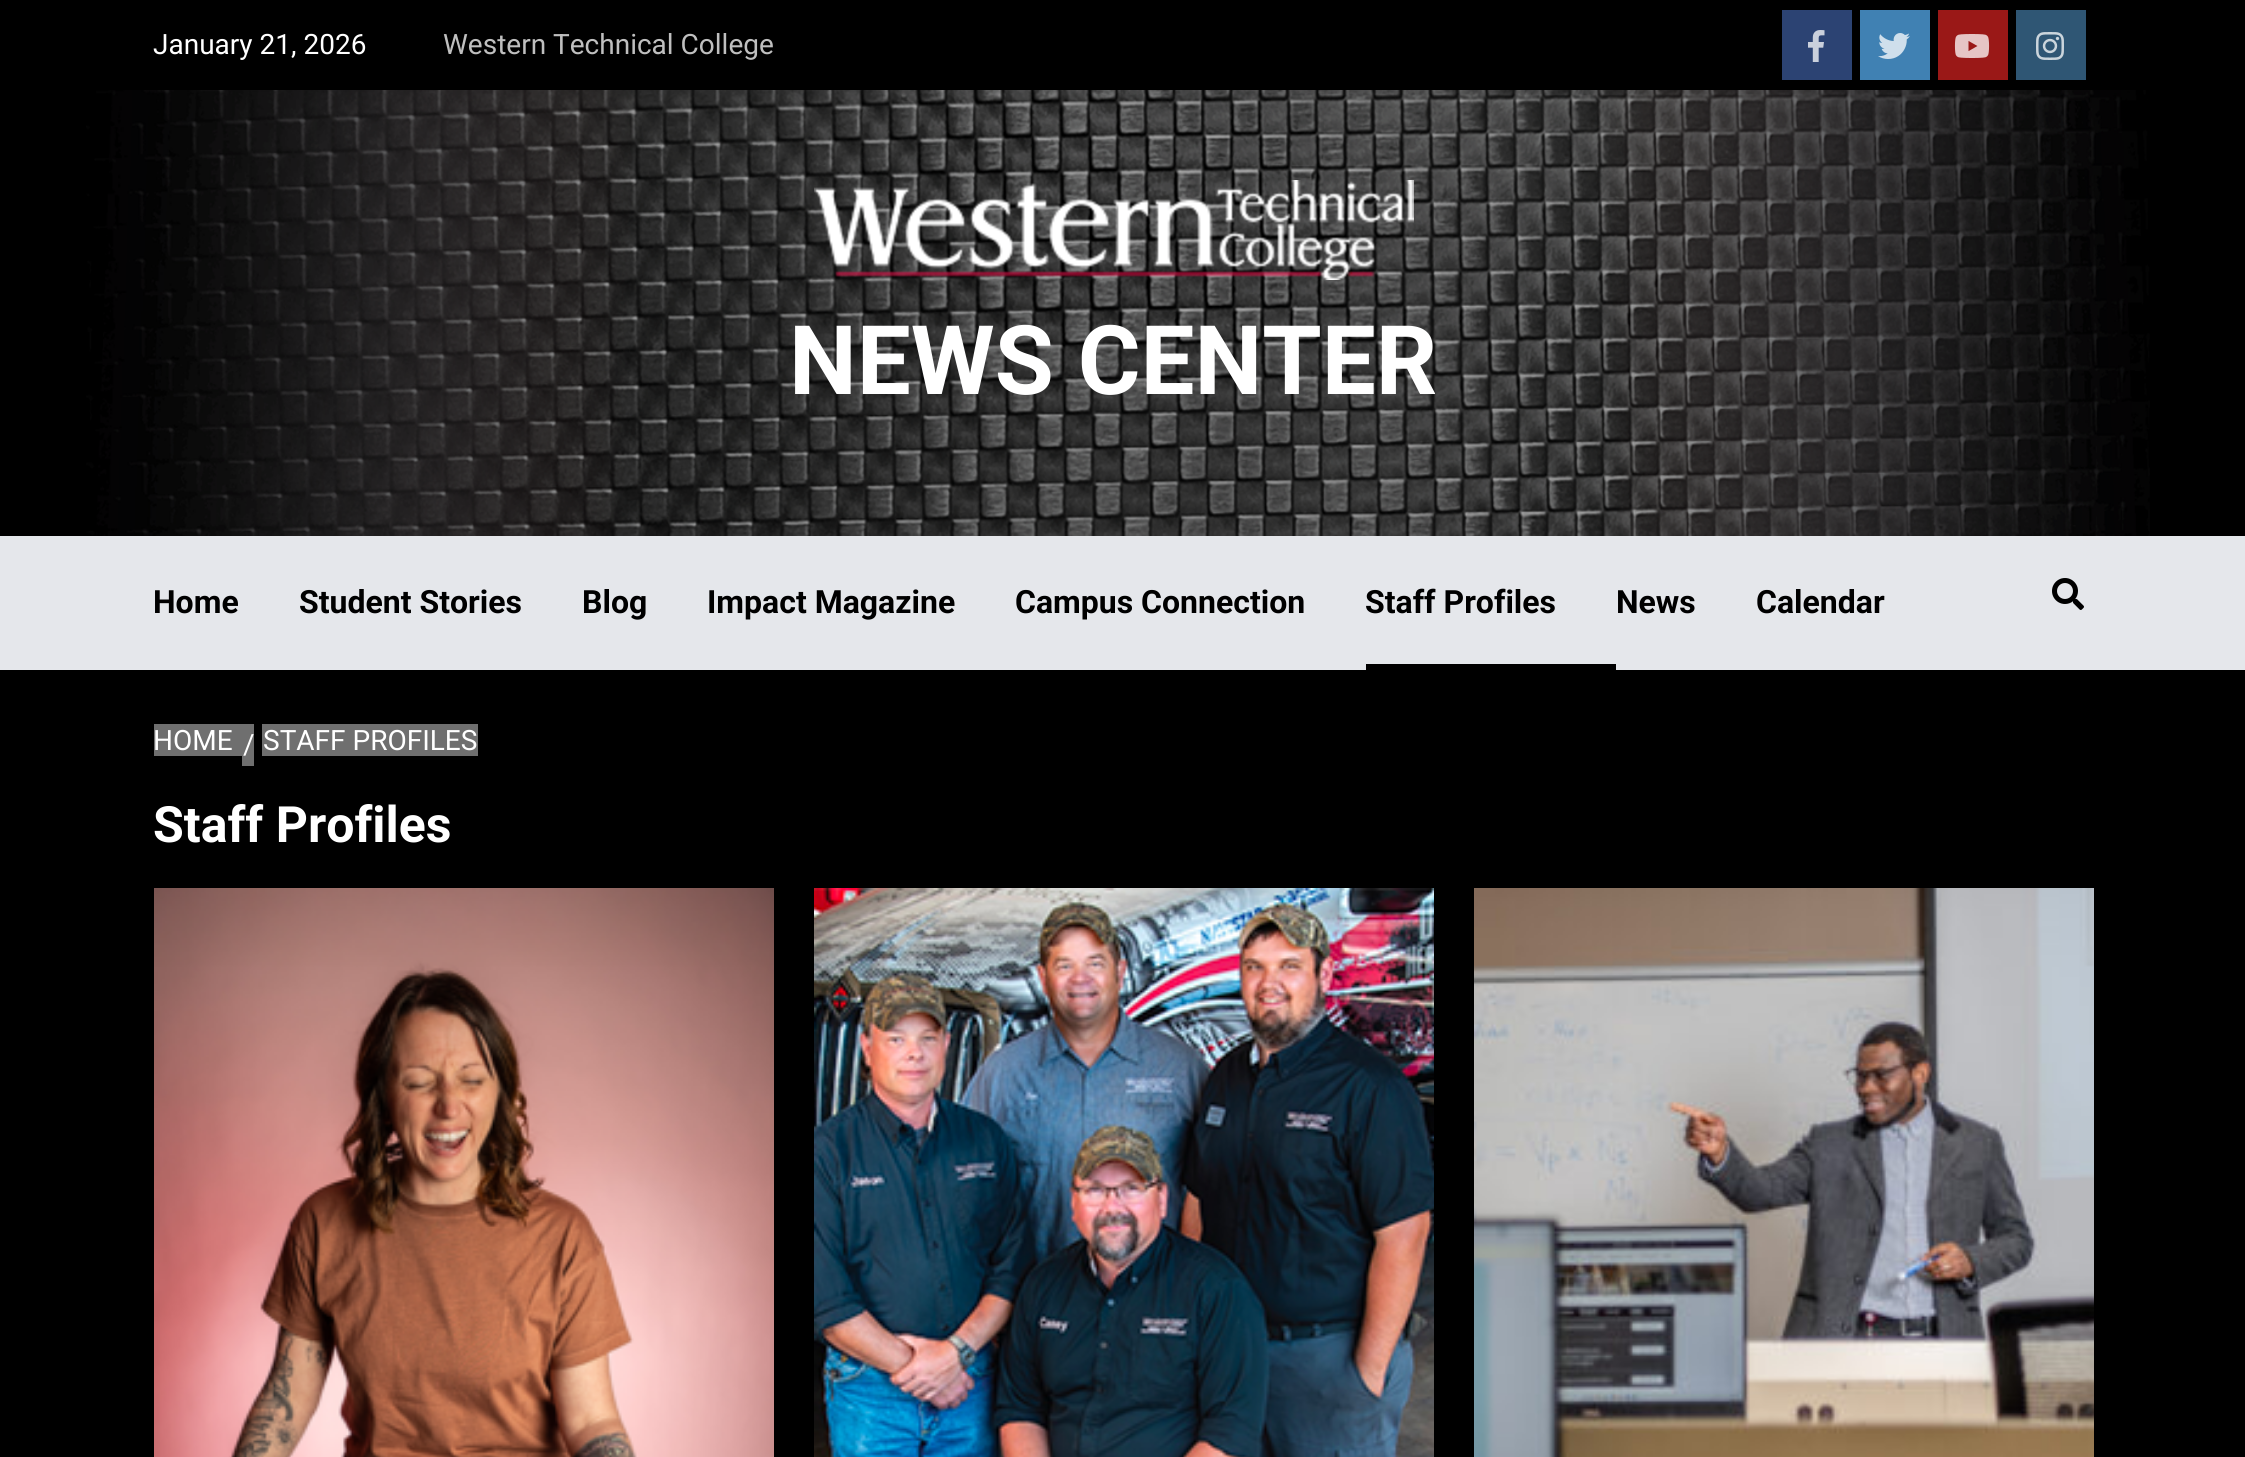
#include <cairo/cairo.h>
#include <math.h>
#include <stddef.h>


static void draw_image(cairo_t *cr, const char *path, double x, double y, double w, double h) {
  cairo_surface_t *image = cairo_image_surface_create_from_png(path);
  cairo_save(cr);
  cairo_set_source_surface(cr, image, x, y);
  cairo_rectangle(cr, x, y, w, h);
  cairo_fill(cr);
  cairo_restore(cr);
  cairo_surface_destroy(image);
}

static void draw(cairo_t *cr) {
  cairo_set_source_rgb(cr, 0, 0, 0);
  cairo_paint(cr);
  cairo_set_source_rgb(cr, 44 / 255.0, 67 / 255.0, 115 / 255.0);
  cairo_rectangle(cr, 1782, 10, 70, 70);
  cairo_fill(cr);
  draw_image(cr, "images/1.png", 1808, 30, 17, 32);
  cairo_set_source_rgb(cr, 64 / 255.0, 129 / 255.0, 179 / 255.0);
  cairo_rectangle(cr, 1860, 10, 70, 70);
  cairo_fill(cr);
  draw_image(cr, "images/2.png", 1878, 33, 32, 26);
  cairo_set_source_rgb(cr, 154 / 255.0, 24 / 255.0, 23 / 255.0);
  cairo_rectangle(cr, 1938, 10, 70, 70);
  cairo_fill(cr);
  draw_image(cr, "images/3.png", 1954, 34, 36, 24);
  cairo_set_source_rgb(cr, 47 / 255.0, 86 / 255.0, 116 / 255.0);
  cairo_rectangle(cr, 2016, 10, 70, 70);
  cairo_fill(cr);
  draw_image(cr, "images/4.png", 2036, 32, 28, 28);
  draw_image(cr, "images/5.png", 86, 90, 2064, 446);
  draw_image(cr, "images/6.png", 814, 180, 600, 100);
  cairo_set_source_rgb(cr, 229 / 255.0, 231 / 255.0, 235 / 255.0);
  cairo_rectangle(cr, 0, 536, 2245, 134);
  cairo_fill(cr);
  cairo_set_source_rgb(cr, 0, 0, 0);
  cairo_rectangle(cr, 1366, 664, 250, 6);
  cairo_fill(cr);
  draw_image(cr, "images/7.png", 2052, 578, 32, 32);
  cairo_set_source_rgb(cr, 111 / 255.0, 111 / 255.0, 111 / 255.0);
  cairo_rectangle(cr, 154, 724, 88, 32);
  cairo_fill(cr);
  cairo_rectangle(cr, 242, 724, 12, 42);
  cairo_fill(cr);
  cairo_rectangle(cr, 262, 724, 216, 32);
  cairo_fill(cr);
  draw_image(cr, "images/8.png", 154, 888, 620, 569);
  draw_image(cr, "images/9.png", 814, 888, 620, 569);
  draw_image(cr, "images/10.png", 1474, 888, 620, 569);
  cairo_select_font_face(cr, "Roboto", CAIRO_FONT_SLANT_NORMAL, CAIRO_FONT_WEIGHT_NORMAL);
  cairo_set_font_size(cr, 28);
  cairo_set_source_rgb(cr, 1, 1, 1);
  cairo_move_to(cr, 153, 54);
  cairo_show_text(cr, "January 21, 2026");
  cairo_set_source_rgb(cr, 191 / 255.0, 191 / 255.0, 191 / 255.0);
  cairo_move_to(cr, 443, 54);
  cairo_show_text(cr, "Western Technical College");
  cairo_select_font_face(cr, "Roboto", CAIRO_FONT_SLANT_NORMAL, CAIRO_FONT_WEIGHT_BOLD);
  cairo_set_font_size(cr, 96);
  cairo_set_source_rgb(cr, 1, 1, 1);
  cairo_move_to(cr, 789, 394);
  cairo_show_text(cr, "NEWS CENTER");
  cairo_set_font_size(cr, 32);
  cairo_set_source_rgb(cr, 0, 0, 0);
  cairo_move_to(cr, 153, 613);
  cairo_show_text(cr, "Home");
  cairo_move_to(cr, 299, 613);
  cairo_show_text(cr, "Student Stories");
  cairo_move_to(cr, 582, 613);
  cairo_show_text(cr, "Blog");
  cairo_move_to(cr, 707, 613);
  cairo_show_text(cr, "Impact Magazine");
  cairo_move_to(cr, 1015, 613);
  cairo_show_text(cr, "Campus Connection");
  cairo_move_to(cr, 1365, 613);
  cairo_show_text(cr, "Staff Profiles");
  cairo_move_to(cr, 1616, 613);
  cairo_show_text(cr, "News");
  cairo_move_to(cr, 1756, 613);
  cairo_show_text(cr, "Calendar");
  cairo_select_font_face(cr, "Roboto", CAIRO_FONT_SLANT_NORMAL, CAIRO_FONT_WEIGHT_NORMAL);
  cairo_set_font_size(cr, 28);
  cairo_set_source_rgb(cr, 1, 1, 1);
  cairo_move_to(cr, 153, 750);
  cairo_show_text(cr, "HOME");
  cairo_move_to(cr, 243, 754);
  cairo_show_text(cr, "/");
  cairo_move_to(cr, 263, 750);
  cairo_show_text(cr, "STAFF PROFILES");
  cairo_select_font_face(cr, "Roboto", CAIRO_FONT_SLANT_NORMAL, CAIRO_FONT_WEIGHT_BOLD);
  cairo_set_font_size(cr, 50);
  cairo_move_to(cr, 153, 842);
  cairo_show_text(cr, "Staff Profiles");
}

int main(void) {
  cairo_surface_t *surface = cairo_image_surface_create(CAIRO_FORMAT_RGB24, 2245, 1457);
  cairo_t *cr = cairo_create(surface);
  cairo_font_options_t *options = cairo_font_options_create();
  cairo_font_options_set_hint_metrics(options, CAIRO_HINT_METRICS_OFF);
  cairo_font_options_set_hint_style(options, CAIRO_HINT_STYLE_NONE);
  cairo_set_font_options(cr, options);
  cairo_set_miter_limit(cr, 4);
  draw(cr);
  cairo_surface_write_to_png(surface, "out.png");
  cairo_font_options_destroy(options);
  cairo_destroy(cr);
  cairo_surface_destroy(surface);
  return 0;
}
